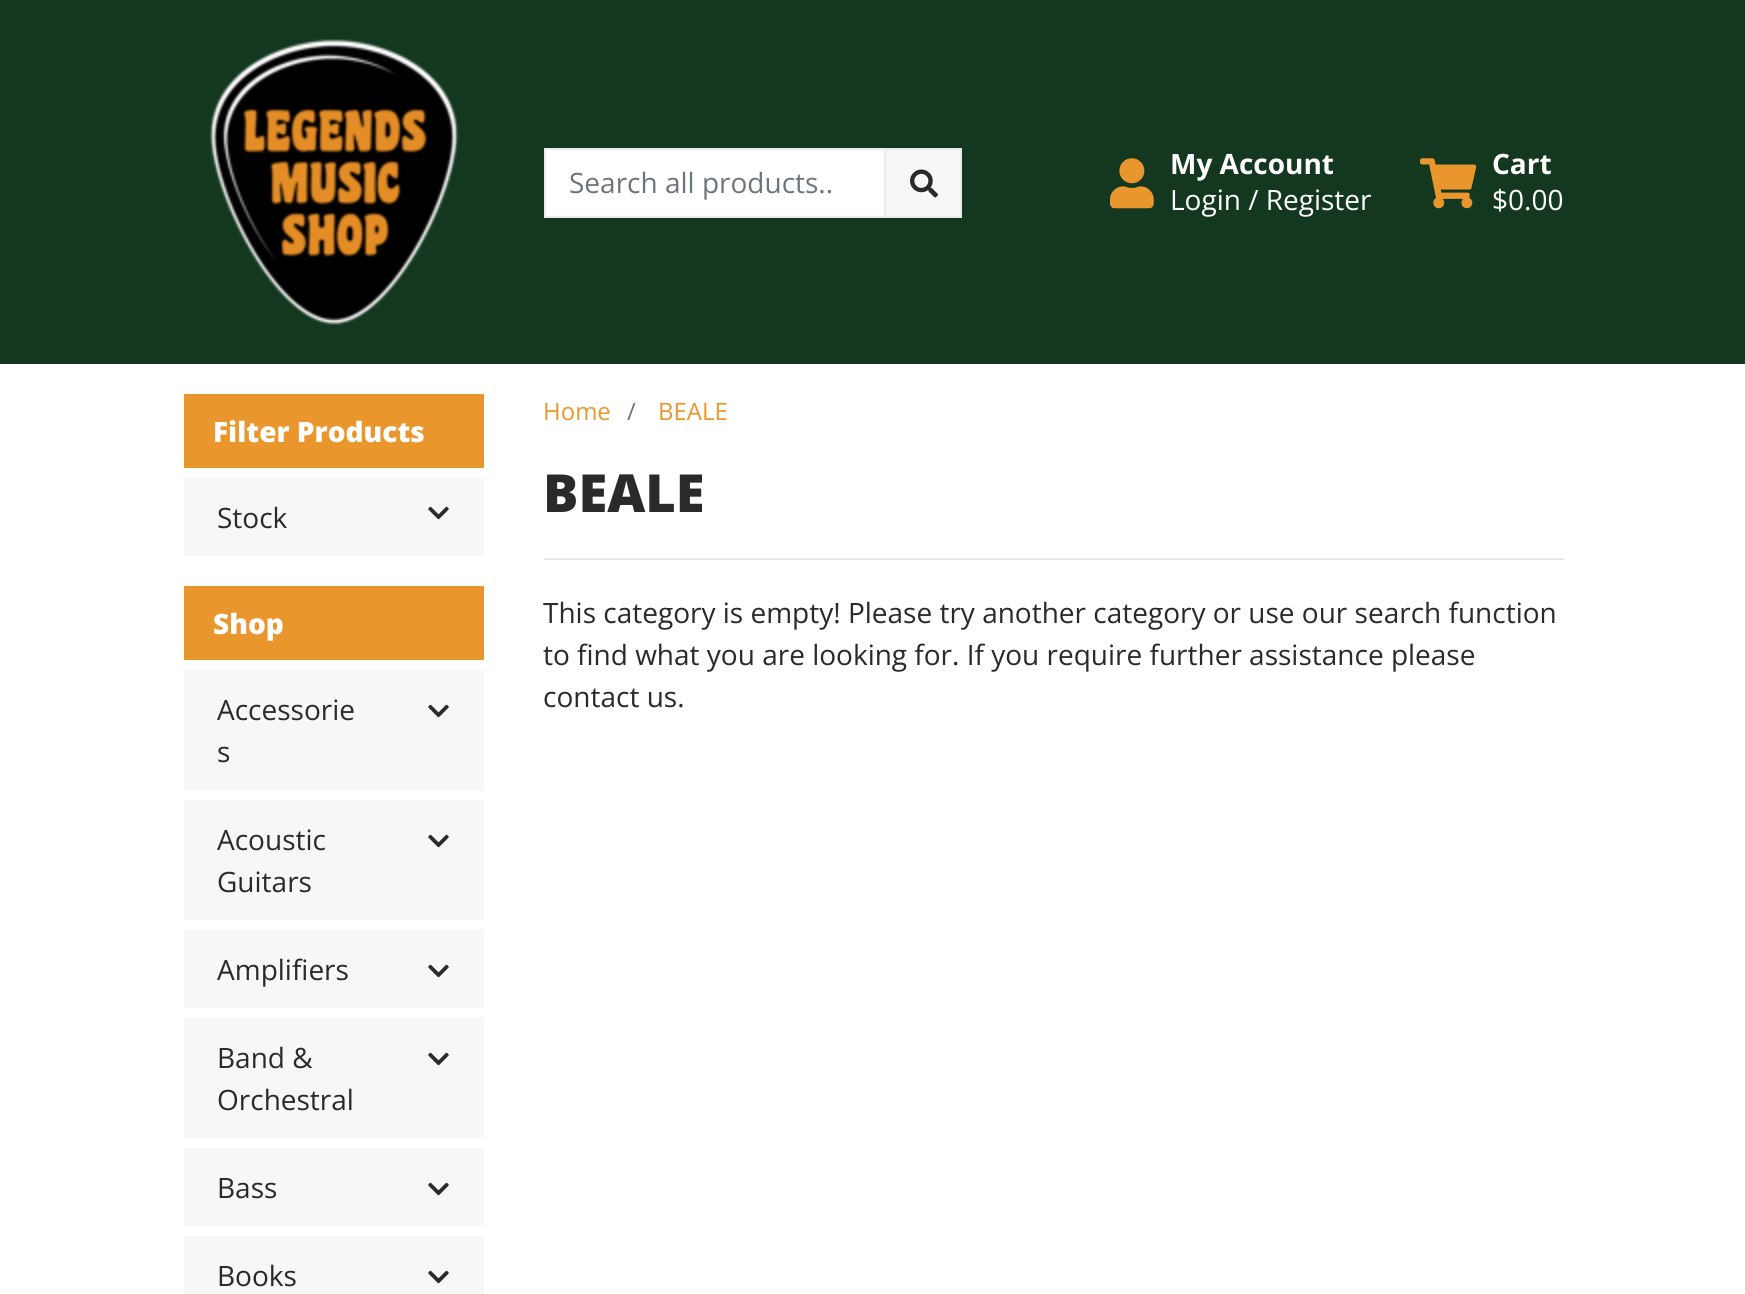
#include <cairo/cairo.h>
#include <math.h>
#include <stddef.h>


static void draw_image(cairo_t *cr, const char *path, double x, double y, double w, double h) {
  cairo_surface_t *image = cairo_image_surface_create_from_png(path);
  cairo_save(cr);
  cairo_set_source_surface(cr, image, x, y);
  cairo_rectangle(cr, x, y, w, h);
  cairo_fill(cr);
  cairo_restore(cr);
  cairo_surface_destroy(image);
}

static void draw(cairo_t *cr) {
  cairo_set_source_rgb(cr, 1, 1, 1);
  cairo_paint(cr);
  cairo_set_source_rgb(cr, 20 / 255.0, 55 / 255.0, 31 / 255.0);
  cairo_rectangle(cr, 0, 0, 1745, 364);
  cairo_fill(cr);
  draw_image(cr, "images/1.png", 209, 39, 250, 286);
  cairo_set_source_rgb(cr, 1, 1, 1);
  cairo_rectangle(cr, 545, 149, 340, 68);
  cairo_fill_preserve(cr);
  cairo_set_source_rgb(cr, 235 / 255.0, 235 / 255.0, 235 / 255.0);
  cairo_stroke(cr);
  cairo_set_source_rgb(cr, 247 / 255.0, 247 / 255.0, 247 / 255.0);
  cairo_rectangle(cr, 885, 149, 76, 68);
  cairo_fill_preserve(cr);
  cairo_set_source_rgb(cr, 235 / 255.0, 235 / 255.0, 235 / 255.0);
  cairo_stroke(cr);
  draw_image(cr, "images/2.png", 910, 169, 28, 29);
  draw_image(cr, "images/3.png", 1110, 158, 44, 51);
  draw_image(cr, "images/4.png", 1420, 158, 57, 51);
  cairo_set_source_rgb(cr, 233 / 255.0, 151 / 255.0, 45 / 255.0);
  cairo_rectangle(cr, 184, 394, 300, 74);
  cairo_fill(cr);
  cairo_rectangle(cr, 185, 479, 298, 76);
  cairo_set_source_rgb(cr, 247 / 255.0, 247 / 255.0, 247 / 255.0);
  cairo_stroke(cr);
  cairo_rectangle(cr, 186, 480, 296, 74);
  cairo_fill(cr);
  draw_image(cr, "images/5.png", 428, 506, 21, 14);
  cairo_set_source_rgb(cr, 233 / 255.0, 151 / 255.0, 45 / 255.0);
  cairo_rectangle(cr, 184, 586, 300, 74);
  cairo_fill(cr);
  cairo_rectangle(cr, 185, 671, 298, 118);
  cairo_set_source_rgb(cr, 247 / 255.0, 247 / 255.0, 247 / 255.0);
  cairo_stroke(cr);
  cairo_rectangle(cr, 186, 672, 296, 116);
  cairo_fill(cr);
  draw_image(cr, "images/5.png", 428, 704, 21, 14);
  cairo_rectangle(cr, 185, 801, 298, 118);
  cairo_stroke(cr);
  cairo_rectangle(cr, 186, 802, 296, 116);
  cairo_fill(cr);
  draw_image(cr, "images/5.png", 428, 834, 21, 14);
  cairo_rectangle(cr, 185, 931, 298, 76);
  cairo_stroke(cr);
  cairo_rectangle(cr, 186, 932, 296, 74);
  cairo_fill(cr);
  draw_image(cr, "images/5.png", 428, 964, 21, 14);
  cairo_rectangle(cr, 185, 1019, 298, 118);
  cairo_stroke(cr);
  cairo_rectangle(cr, 186, 1020, 296, 116);
  cairo_fill(cr);
  draw_image(cr, "images/5.png", 428, 1052, 21, 14);
  cairo_rectangle(cr, 185, 1149, 298, 76);
  cairo_stroke(cr);
  cairo_rectangle(cr, 186, 1150, 296, 74);
  cairo_fill(cr);
  draw_image(cr, "images/5.png", 428, 1182, 21, 14);
  cairo_rectangle(cr, 185, 1237, 298, 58);
  cairo_stroke(cr);
  cairo_rectangle(cr, 186, 1238, 296, 56);
  cairo_fill(cr);
  draw_image(cr, "images/5.png", 428, 1270, 21, 14);
  cairo_set_source_rgb(cr, 230 / 255.0, 230 / 255.0, 230 / 255.0);
  cairo_rectangle(cr, 544, 558, 1020, 2);
  cairo_fill(cr);
  cairo_select_font_face(cr, "Open Sans", CAIRO_FONT_SLANT_NORMAL, CAIRO_FONT_WEIGHT_NORMAL);
  cairo_set_font_size(cr, 28);
  cairo_set_source_rgb(cr, 108 / 255.0, 117 / 255.0, 125 / 255.0);
  cairo_move_to(cr, 569, 193);
  cairo_show_text(cr, "Search all products..");
  cairo_select_font_face(cr, "Open Sans", CAIRO_FONT_SLANT_NORMAL, CAIRO_FONT_WEIGHT_BOLD);
  cairo_set_source_rgb(cr, 1, 1, 1);
  cairo_move_to(cr, 1170, 174);
  cairo_show_text(cr, "My Account");
  cairo_select_font_face(cr, "Open Sans", CAIRO_FONT_SLANT_NORMAL, CAIRO_FONT_WEIGHT_NORMAL);
  cairo_move_to(cr, 1170, 210);
  cairo_show_text(cr, "Login / Register");
  cairo_select_font_face(cr, "Open Sans", CAIRO_FONT_SLANT_NORMAL, CAIRO_FONT_WEIGHT_BOLD);
  cairo_move_to(cr, 1492, 174);
  cairo_show_text(cr, "Cart");
  cairo_select_font_face(cr, "Open Sans", CAIRO_FONT_SLANT_NORMAL, CAIRO_FONT_WEIGHT_NORMAL);
  cairo_move_to(cr, 1492, 210);
  cairo_show_text(cr, "$0.00");
  cairo_select_font_face(cr, "Open Sans ExtraBold", CAIRO_FONT_SLANT_NORMAL, CAIRO_FONT_WEIGHT_NORMAL);
  cairo_move_to(cr, 213, 442);
  cairo_show_text(cr, "Filter Products");
  cairo_select_font_face(cr, "Open Sans", CAIRO_FONT_SLANT_NORMAL, CAIRO_FONT_WEIGHT_NORMAL);
  cairo_set_source_rgb(cr, 42 / 255.0, 42 / 255.0, 42 / 255.0);
  cairo_move_to(cr, 217, 528);
  cairo_show_text(cr, "Stock");
  cairo_select_font_face(cr, "Open Sans ExtraBold", CAIRO_FONT_SLANT_NORMAL, CAIRO_FONT_WEIGHT_NORMAL);
  cairo_set_source_rgb(cr, 1, 1, 1);
  cairo_move_to(cr, 213, 634);
  cairo_show_text(cr, "Shop");
  cairo_select_font_face(cr, "Open Sans", CAIRO_FONT_SLANT_NORMAL, CAIRO_FONT_WEIGHT_NORMAL);
  cairo_set_source_rgb(cr, 42 / 255.0, 42 / 255.0, 42 / 255.0);
  cairo_move_to(cr, 217, 720);
  cairo_show_text(cr, "Accessorie");
  cairo_move_to(cr, 217, 762);
  cairo_show_text(cr, "s");
  cairo_move_to(cr, 217, 850);
  cairo_show_text(cr, "Acoustic");
  cairo_move_to(cr, 217, 892);
  cairo_show_text(cr, "Guitars");
  cairo_move_to(cr, 217, 980);
  cairo_show_text(cr, "Amplifiers");
  cairo_move_to(cr, 217, 1068);
  cairo_show_text(cr, "Band &");
  cairo_move_to(cr, 217, 1110);
  cairo_show_text(cr, "Orchestral");
  cairo_move_to(cr, 217, 1198);
  cairo_show_text(cr, "Bass");
  cairo_move_to(cr, 217, 1286);
  cairo_show_text(cr, "Books");
  cairo_set_font_size(cr, 24);
  cairo_set_source_rgb(cr, 233 / 255.0, 151 / 255.0, 45 / 255.0);
  cairo_move_to(cr, 543, 420);
  cairo_show_text(cr, "Home");
  cairo_set_source_rgb(cr, 108 / 255.0, 117 / 255.0, 125 / 255.0);
  cairo_move_to(cr, 627, 420);
  cairo_show_text(cr, "/");
  cairo_set_source_rgb(cr, 233 / 255.0, 151 / 255.0, 45 / 255.0);
  cairo_move_to(cr, 658, 420);
  cairo_show_text(cr, "BEALE");
  cairo_select_font_face(cr, "Open Sans ExtraBold", CAIRO_FONT_SLANT_NORMAL, CAIRO_FONT_WEIGHT_NORMAL);
  cairo_set_font_size(cr, 52.5);
  cairo_set_source_rgb(cr, 42 / 255.0, 42 / 255.0, 42 / 255.0);
  cairo_move_to(cr, 543, 512);
  cairo_show_text(cr, "BEALE");
  cairo_select_font_face(cr, "Open Sans", CAIRO_FONT_SLANT_NORMAL, CAIRO_FONT_WEIGHT_NORMAL);
  cairo_set_font_size(cr, 28);
  cairo_move_to(cr, 543, 623);
  cairo_show_text(cr, "This category is empty! Please try another category or use our search function");
  cairo_move_to(cr, 543, 665);
  cairo_show_text(cr, "to find what you are looking for. If you require further assistance please");
  cairo_move_to(cr, 543, 707);
  cairo_show_text(cr, "contact us.");
}

int main(void) {
  cairo_surface_t *surface = cairo_image_surface_create(CAIRO_FORMAT_RGB24, 1745, 1294);
  cairo_t *cr = cairo_create(surface);
  cairo_font_options_t *options = cairo_font_options_create();
  cairo_font_options_set_hint_metrics(options, CAIRO_HINT_METRICS_OFF);
  cairo_font_options_set_hint_style(options, CAIRO_HINT_STYLE_NONE);
  cairo_set_font_options(cr, options);
  cairo_set_miter_limit(cr, 4);
  draw(cr);
  cairo_surface_write_to_png(surface, "out.png");
  cairo_font_options_destroy(options);
  cairo_destroy(cr);
  cairo_surface_destroy(surface);
  return 0;
}
